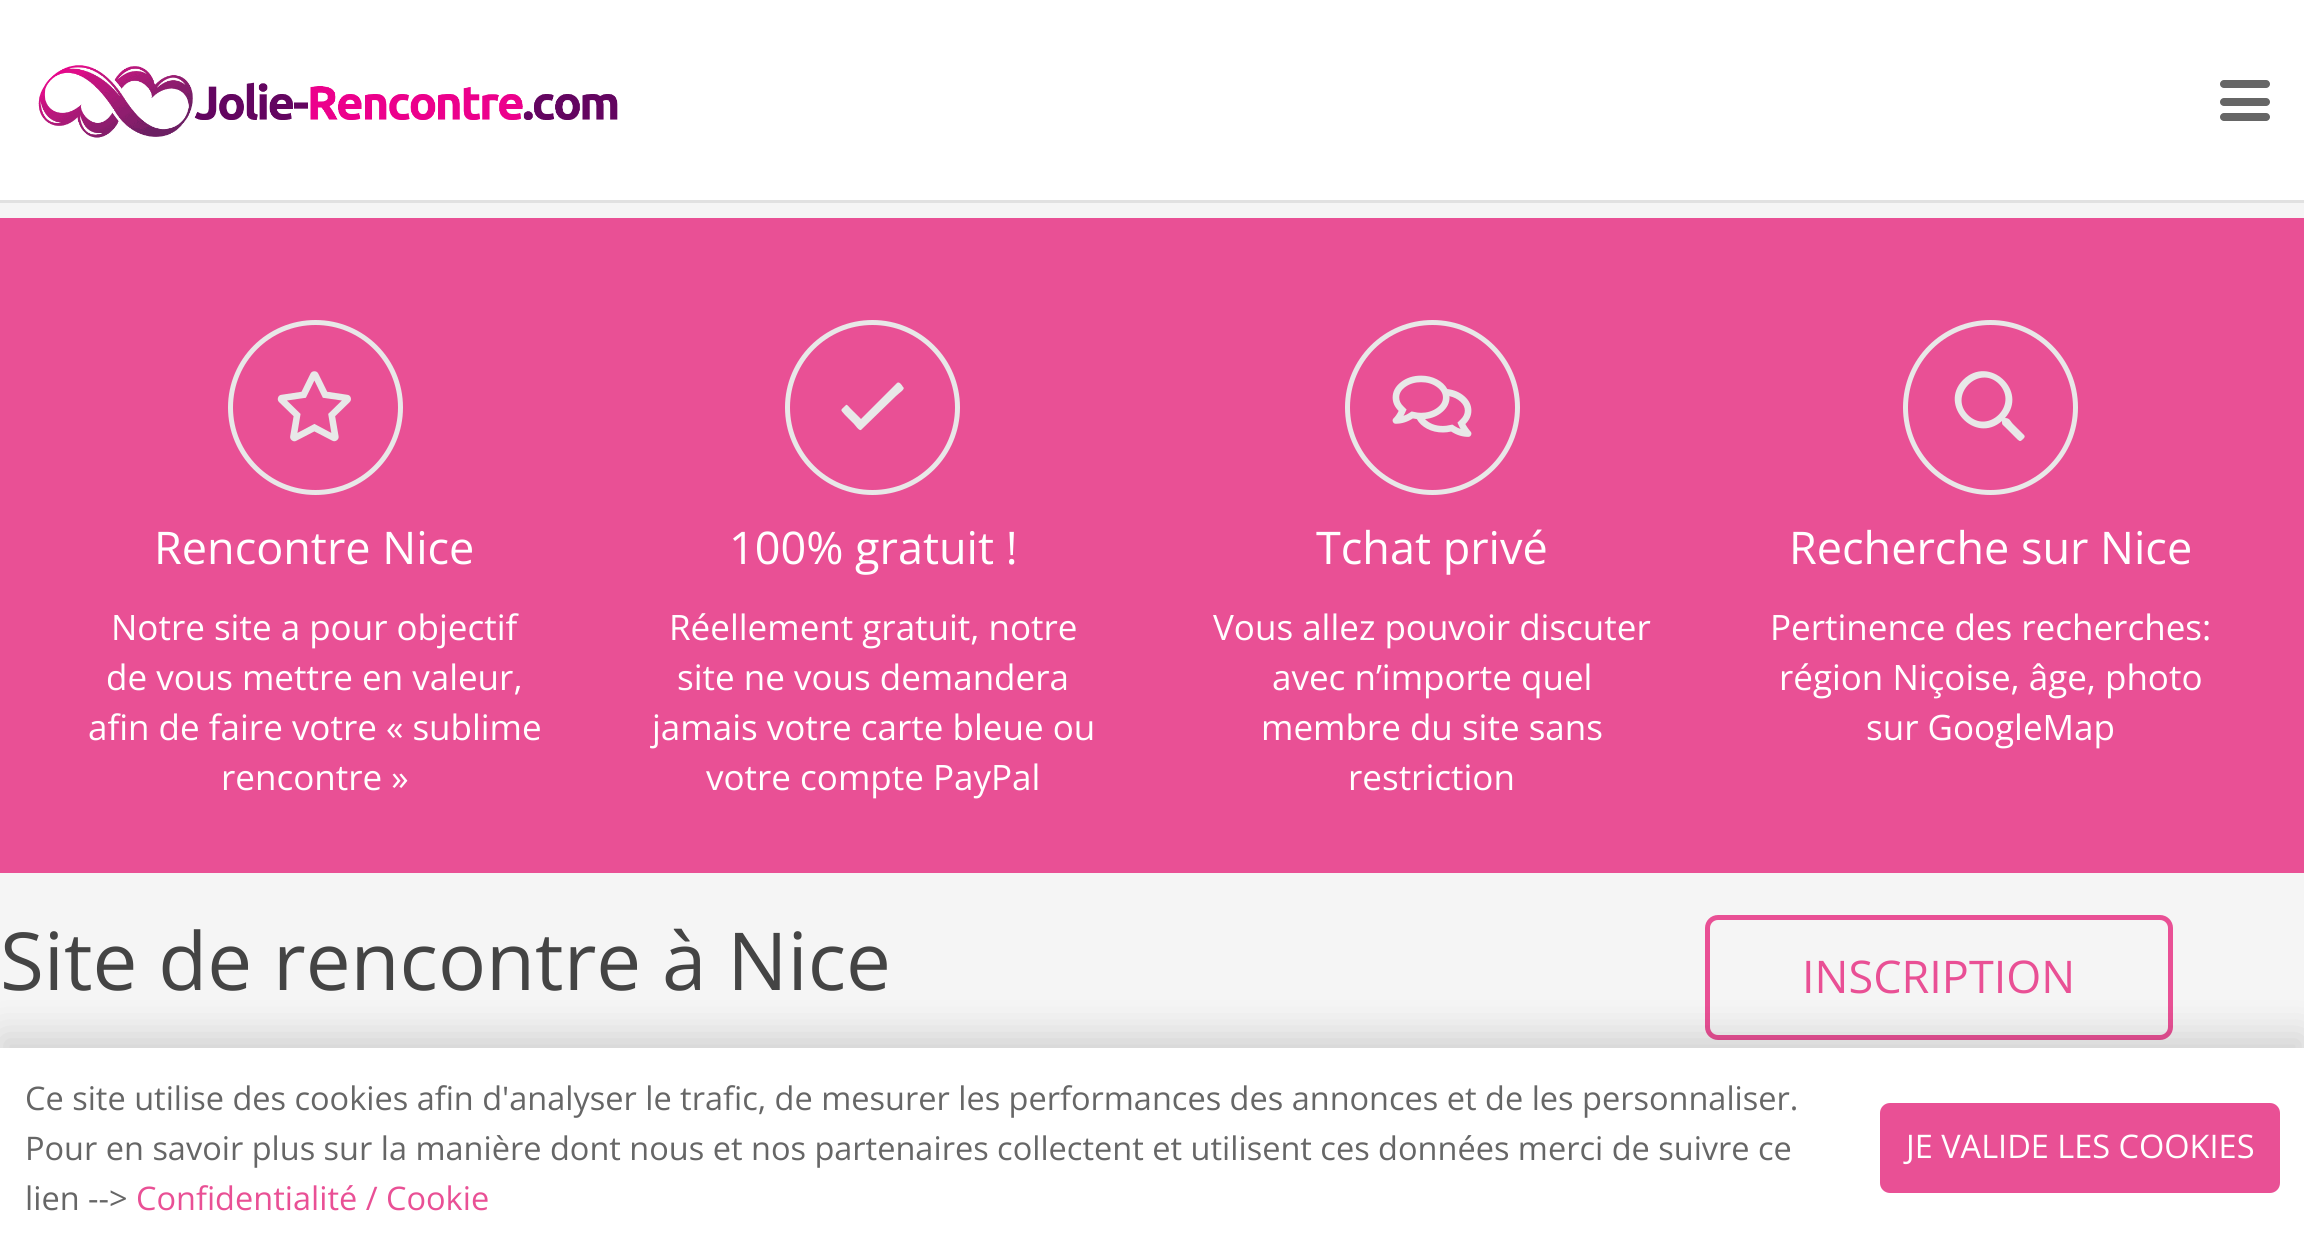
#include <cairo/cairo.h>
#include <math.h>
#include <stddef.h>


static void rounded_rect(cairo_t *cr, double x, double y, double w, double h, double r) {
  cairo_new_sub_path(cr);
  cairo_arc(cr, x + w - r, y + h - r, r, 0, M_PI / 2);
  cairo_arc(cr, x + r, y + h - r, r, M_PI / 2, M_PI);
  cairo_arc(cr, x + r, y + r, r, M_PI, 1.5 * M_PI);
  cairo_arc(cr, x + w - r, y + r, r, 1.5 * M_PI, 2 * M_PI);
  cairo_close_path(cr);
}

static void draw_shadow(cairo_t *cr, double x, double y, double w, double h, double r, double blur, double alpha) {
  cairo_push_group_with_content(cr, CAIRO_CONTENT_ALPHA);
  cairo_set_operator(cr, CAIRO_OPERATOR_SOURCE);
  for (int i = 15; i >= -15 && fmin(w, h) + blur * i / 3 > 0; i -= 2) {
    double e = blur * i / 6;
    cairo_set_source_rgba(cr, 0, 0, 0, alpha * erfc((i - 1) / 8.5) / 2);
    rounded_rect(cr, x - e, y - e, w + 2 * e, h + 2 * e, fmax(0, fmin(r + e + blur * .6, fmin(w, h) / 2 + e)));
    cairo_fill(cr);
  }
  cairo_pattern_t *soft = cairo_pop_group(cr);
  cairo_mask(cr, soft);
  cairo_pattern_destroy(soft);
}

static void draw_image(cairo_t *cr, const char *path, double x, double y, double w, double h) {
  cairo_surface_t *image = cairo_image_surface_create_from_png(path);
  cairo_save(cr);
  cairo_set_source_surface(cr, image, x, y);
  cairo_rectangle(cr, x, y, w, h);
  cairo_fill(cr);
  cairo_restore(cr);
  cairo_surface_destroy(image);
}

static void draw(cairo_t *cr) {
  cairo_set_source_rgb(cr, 245 / 255.0, 245 / 255.0, 245 / 255.0);
  cairo_paint(cr);
  cairo_set_source_rgb(cr, 225 / 255.0, 225 / 255.0, 225 / 255.0);
  cairo_rectangle(cr, 0, 200, 2304, 3);
  cairo_fill(cr);
  cairo_set_source_rgb(cr, 1, 1, 1);
  cairo_rectangle(cr, 0, 0, 2304, 200);
  cairo_fill(cr);
  draw_image(cr, "images/1.png", 38, 65, 580, 73);
  cairo_set_source_rgb(cr, 102 / 255.0, 102 / 255.0, 102 / 255.0);
  rounded_rect(cr, 2220, 98, 50, 8, 4);
  cairo_fill(cr);
  rounded_rect(cr, 2220, 80, 50, 8, 4);
  cairo_fill(cr);
  rounded_rect(cr, 2220, 113, 50, 8, 4);
  cairo_fill(cr);
  cairo_set_source_rgb(cr, 233 / 255.0, 80 / 255.0, 149 / 255.0);
  cairo_rectangle(cr, 0, 218, 2304, 655);
  cairo_fill(cr);
  cairo_arc(cr, 315.5, 407.5, 85, 0, 2 * M_PI);
  cairo_set_source_rgb(cr, 232 / 255.0, 232 / 255.0, 232 / 255.0);
  cairo_set_line_width(cr, 5);
  cairo_stroke(cr);
  draw_image(cr, "images/2.png", 277, 371, 74, 71);
  cairo_arc(cr, 872.5, 407.5, 85, 0, 2 * M_PI);
  cairo_stroke(cr);
  cairo_new_path(cr);
  cairo_move_to(cr, 897, 383);
  cairo_curve_to(cr, 899, 381, 902, 385, 903, 387);
  cairo_curve_to(cr, 906, 389, 899, 393, 896, 396);
  cairo_line_to(cr, 861, 430);
  cairo_curve_to(cr, 859, 431, 855, 425, 854, 424);
  cairo_line_to(cr, 845, 415);
  cairo_curve_to(cr, 840, 409, 840, 411, 846, 405);
  cairo_curve_to(cr, 847, 404, 849, 407, 850, 408);
  cairo_line_to(cr, 861, 419);
  cairo_close_path(cr);
  cairo_fill(cr);
  cairo_arc(cr, 1432.5, 407.5, 85, 0, 2 * M_PI);
  cairo_stroke(cr);
  draw_image(cr, "images/3.png", 1392, 375, 80, 62);
  cairo_arc(cr, 1990.5, 407.5, 85, 0, 2 * M_PI);
  cairo_stroke(cr);
  cairo_new_path(cr);
  cairo_move_to(cr, 2024, 435);
  cairo_curve_to(cr, 2026, 437, 2023, 439, 2022, 440);
  cairo_curve_to(cr, 2020, 442, 2019, 441, 2016, 438);
  cairo_line_to(cr, 2005, 427);
  cairo_curve_to(cr, 2002, 424, 2002, 425, 2002, 421);
  cairo_curve_to(cr, 1975, 445, 1938, 405, 1963, 380);
  cairo_curve_to(cr, 1989, 354, 2029, 391, 2005, 418);
  cairo_curve_to(cr, 2010, 418, 2010, 421, 2013, 424);
  cairo_close_path(cr);
  cairo_move_to(cr, 1968, 415);
  cairo_curve_to(cr, 1988, 435, 2019, 405, 1999, 384);
  cairo_curve_to(cr, 1979, 364, 1948, 395, 1968, 415);
  cairo_close_path(cr);
  cairo_fill(cr);
  rounded_rect(cr, 1707.5, 917.5, 463, 120, 10.5);
  cairo_set_source_rgb(cr, 233 / 255.0, 80 / 255.0, 149 / 255.0);
  cairo_stroke(cr);
  cairo_set_source_rgb(cr, 0, 0, 0);
  draw_shadow(cr, 0, 1035, 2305, 200, 0, 19, 0.15);
  cairo_set_source_rgb(cr, 1, 1, 1);
  cairo_rectangle(cr, 0, 1048, 2304, 198);
  cairo_fill(cr);
  cairo_set_source_rgb(cr, 233 / 255.0, 80 / 255.0, 149 / 255.0);
  rounded_rect(cr, 1880, 1103, 400, 90, 10);
  cairo_fill(cr);
  cairo_select_font_face(cr, "Open Sans", CAIRO_FONT_SLANT_NORMAL, CAIRO_FONT_WEIGHT_NORMAL);
  cairo_set_font_size(cr, 45);
  cairo_set_source_rgb(cr, 1, 1, 1);
  cairo_move_to(cr, 154, 564);
  cairo_show_text(cr, "Rencontre Nice");
  cairo_set_font_size(cr, 35);
  cairo_move_to(cr, 111, 640);
  cairo_show_text(cr, "Notre site a pour objectif");
  cairo_move_to(cr, 106, 690);
  cairo_show_text(cr, "de vous mettre en valeur,");
  cairo_move_to(cr, 88, 740);
  cairo_show_text(cr, "afin de faire votre « sublime");
  cairo_move_to(cr, 221, 790);
  cairo_show_text(cr, "rencontre »");
  cairo_set_font_size(cr, 45);
  cairo_move_to(cr, 729, 564);
  cairo_show_text(cr, "100% gratuit !");
  cairo_set_font_size(cr, 35);
  cairo_move_to(cr, 669, 640);
  cairo_show_text(cr, "Réellement gratuit, notre");
  cairo_move_to(cr, 677, 690);
  cairo_show_text(cr, "site ne vous demandera");
  cairo_move_to(cr, 652, 740);
  cairo_show_text(cr, "jamais votre carte bleue ou");
  cairo_move_to(cr, 706, 790);
  cairo_show_text(cr, "votre compte PayPal");
  cairo_set_font_size(cr, 45);
  cairo_move_to(cr, 1316, 564);
  cairo_show_text(cr, "Tchat privé");
  cairo_set_font_size(cr, 35);
  cairo_move_to(cr, 1213, 640);
  cairo_show_text(cr, "Vous allez pouvoir discuter");
  cairo_move_to(cr, 1272, 690);
  cairo_show_text(cr, "avec n’importe quel");
  cairo_move_to(cr, 1261, 740);
  cairo_show_text(cr, "membre du site sans");
  cairo_move_to(cr, 1348, 790);
  cairo_show_text(cr, "restriction");
  cairo_set_font_size(cr, 45);
  cairo_move_to(cr, 1789, 564);
  cairo_show_text(cr, "Recherche sur Nice");
  cairo_set_font_size(cr, 35);
  cairo_move_to(cr, 1770, 640);
  cairo_show_text(cr, "Pertinence des recherches:");
  cairo_move_to(cr, 1779, 690);
  cairo_show_text(cr, "région Niçoise, âge, photo");
  cairo_move_to(cr, 1866, 740);
  cairo_show_text(cr, "sur GoogleMap");
  cairo_set_font_size(cr, 80);
  cairo_set_source_rgb(cr, 68 / 255.0, 68 / 255.0, 68 / 255.0);
  cairo_move_to(cr, 0, 990);
  cairo_show_text(cr, "Site de rencontre à Nice");
  cairo_set_font_size(cr, 45);
  cairo_set_source_rgb(cr, 233 / 255.0, 80 / 255.0, 149 / 255.0);
  cairo_move_to(cr, 1802, 993);
  cairo_show_text(cr, "INSCRIPTION");
  cairo_set_font_size(cr, 32.5);
  cairo_set_source_rgb(cr, 102 / 255.0, 102 / 255.0, 102 / 255.0);
  cairo_move_to(cr, 25, 1110);
  cairo_show_text(cr, "Ce site utilise des cookies afin d'analyser le trafic, de mesurer les performances des annonces et de les personnaliser.");
  cairo_move_to(cr, 25, 1160);
  cairo_show_text(cr, "Pour en savoir plus sur la manière dont nous et nos partenaires collectent et utilisent ces données merci de suivre ce");
  cairo_move_to(cr, 25, 1210);
  cairo_show_text(cr, "lien -->");
  cairo_set_source_rgb(cr, 233 / 255.0, 80 / 255.0, 149 / 255.0);
  cairo_move_to(cr, 136, 1210);
  cairo_show_text(cr, "Confidentialité / Cookie");
  cairo_set_source_rgb(cr, 1, 1, 1);
  cairo_move_to(cr, 1906, 1158);
  cairo_show_text(cr, "JE VALIDE LES COOKIES");
}

int main(void) {
  cairo_surface_t *surface = cairo_image_surface_create(CAIRO_FORMAT_RGB24, 2304, 1246);
  cairo_t *cr = cairo_create(surface);
  cairo_font_options_t *options = cairo_font_options_create();
  cairo_font_options_set_hint_metrics(options, CAIRO_HINT_METRICS_OFF);
  cairo_font_options_set_hint_style(options, CAIRO_HINT_STYLE_NONE);
  cairo_set_font_options(cr, options);
  cairo_set_miter_limit(cr, 4);
  draw(cr);
  cairo_surface_write_to_png(surface, "out.png");
  cairo_font_options_destroy(options);
  cairo_destroy(cr);
  cairo_surface_destroy(surface);
  return 0;
}
